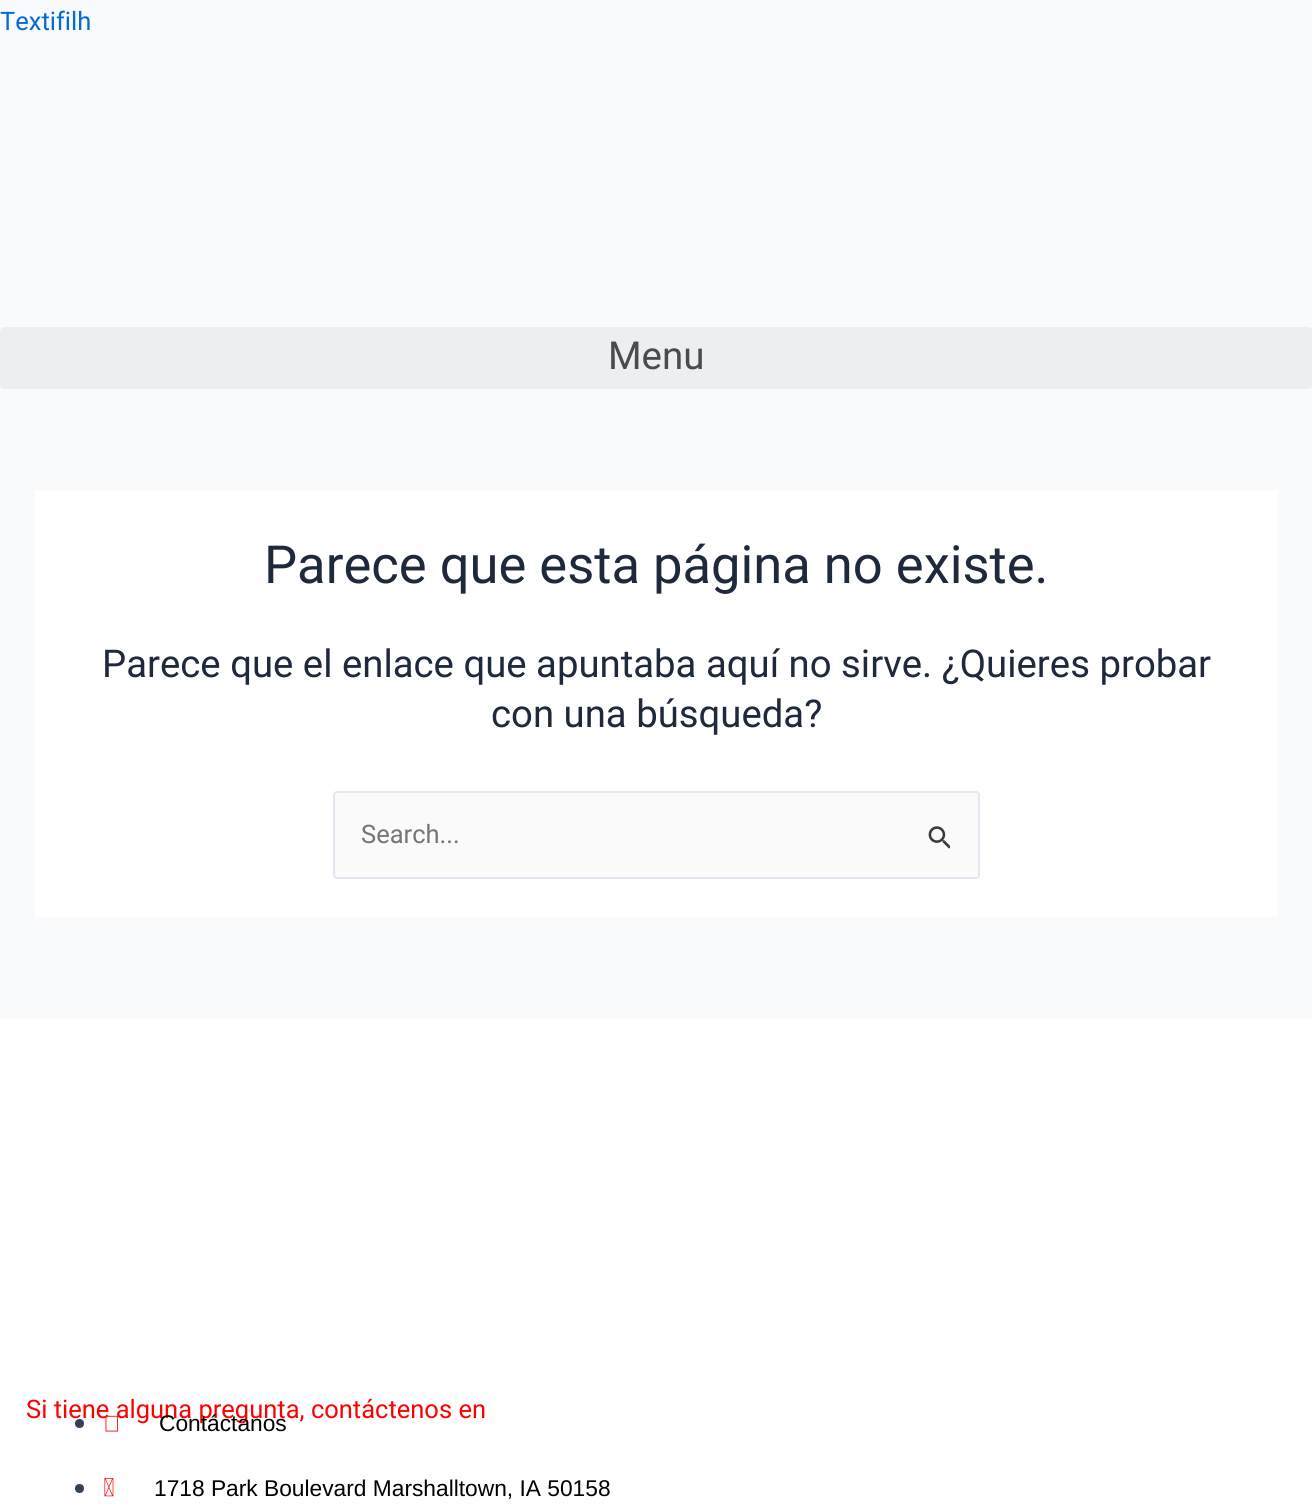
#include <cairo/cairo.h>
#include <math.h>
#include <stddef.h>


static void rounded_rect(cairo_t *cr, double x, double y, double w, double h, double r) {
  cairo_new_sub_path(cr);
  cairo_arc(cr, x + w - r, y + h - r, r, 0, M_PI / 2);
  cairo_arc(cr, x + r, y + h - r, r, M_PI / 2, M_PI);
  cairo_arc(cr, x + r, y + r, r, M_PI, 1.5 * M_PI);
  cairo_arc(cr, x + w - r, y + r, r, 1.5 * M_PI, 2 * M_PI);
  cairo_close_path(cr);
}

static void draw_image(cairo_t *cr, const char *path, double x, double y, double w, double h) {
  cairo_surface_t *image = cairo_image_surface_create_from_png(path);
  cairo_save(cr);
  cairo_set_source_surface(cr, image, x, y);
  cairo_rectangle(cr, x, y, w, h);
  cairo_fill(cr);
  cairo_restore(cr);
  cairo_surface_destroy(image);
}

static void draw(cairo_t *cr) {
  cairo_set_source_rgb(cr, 249 / 255.0, 250 / 255.0, 251 / 255.0);
  cairo_paint(cr);
  cairo_set_source_rgb(cr, 236 / 255.0, 238 / 255.0, 239 / 255.0);
  rounded_rect(cr, 0, 327, 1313, 62, 5);
  cairo_fill(cr);
  cairo_set_source_rgb(cr, 1, 1, 1);
  cairo_rectangle(cr, 35, 490, 1243, 427);
  cairo_fill(cr);
  cairo_set_source_rgb(cr, 250 / 255.0, 250 / 255.0, 250 / 255.0);
  rounded_rect(cr, 334, 792, 645, 86, 3);
  cairo_fill_preserve(cr);
  cairo_set_source_rgb(cr, 226 / 255.0, 232 / 255.0, 240 / 255.0);
  cairo_stroke(cr);
  draw_image(cr, "images/1.png", 928, 826, 22, 23);
  cairo_set_source_rgb(cr, 1, 1, 1);
  cairo_rectangle(cr, 0, 1019, 1312, 490);
  cairo_fill(cr);
  cairo_set_source_rgb(cr, 51 / 255.0, 65 / 255.0, 85 / 255.0);
  cairo_arc(cr, 79.5, 1488.5, 4.5, 0, 2 * M_PI);
  cairo_fill(cr);
  draw_image(cr, "images/3.png", 104, 1478, 10, 19);
  cairo_select_font_face(cr, "Roboto", CAIRO_FONT_SLANT_NORMAL, CAIRO_FONT_WEIGHT_NORMAL);
  cairo_set_font_size(cr, 25.5);
  cairo_set_source_rgb(cr, 4 / 255.0, 107 / 255.0, 210 / 255.0);
  cairo_move_to(cr, 0, 30);
  cairo_show_text(cr, "Textifilh");
  cairo_set_font_size(cr, 38.5);
  cairo_set_source_rgb(cr, 73 / 255.0, 76 / 255.0, 79 / 255.0);
  cairo_move_to(cr, 608, 369);
  cairo_show_text(cr, "Menu");
  cairo_set_font_size(cr, 52.5);
  cairo_set_source_rgb(cr, 30 / 255.0, 41 / 255.0, 59 / 255.0);
  cairo_move_to(cr, 264, 583);
  cairo_show_text(cr, "Parece que esta página no existe.");
  cairo_set_font_size(cr, 38.3);
  cairo_move_to(cr, 102, 677);
  cairo_show_text(cr, "Parece que el enlace que apuntaba aquí no sirve. ¿Quieres probar");
  cairo_move_to(cr, 491, 727);
  cairo_show_text(cr, "con una búsqueda?");
  cairo_set_font_size(cr, 25.5);
  cairo_set_source_rgb(cr, 117 / 255.0, 117 / 255.0, 117 / 255.0);
  cairo_move_to(cr, 361, 843);
  cairo_show_text(cr, "Search...");
  cairo_set_source_rgb(cr, 1, 0, 0);
  cairo_move_to(cr, 26, 1418);
  cairo_show_text(cr, "Si tiene alguna pregunta, contáctenos en");
  cairo_set_source_rgb(cr, 51 / 255.0, 65 / 255.0, 85 / 255.0);
  cairo_new_path(cr);
  cairo_arc(cr, 79.5, 1423.5, 4.5, 0, 2 * M_PI);
  cairo_fill(cr);
  draw_image(cr, "images/2.png", 105, 1415, 14, 17);
  cairo_select_font_face(cr, "Liberation Sans", CAIRO_FONT_SLANT_NORMAL, CAIRO_FONT_WEIGHT_NORMAL);
  cairo_set_font_size(cr, 22.75);
  cairo_set_source_rgb(cr, 0, 0, 0);
  cairo_move_to(cr, 159, 1431);
  cairo_show_text(cr, "Contáctanos");
  cairo_move_to(cr, 154, 1496);
  cairo_show_text(cr, "1718 Park Boulevard Marshalltown, IA 50158");
}

int main(void) {
  cairo_surface_t *surface = cairo_image_surface_create(CAIRO_FORMAT_RGB24, 1312, 1509);
  cairo_t *cr = cairo_create(surface);
  cairo_font_options_t *options = cairo_font_options_create();
  cairo_font_options_set_hint_metrics(options, CAIRO_HINT_METRICS_OFF);
  cairo_font_options_set_hint_style(options, CAIRO_HINT_STYLE_NONE);
  cairo_set_font_options(cr, options);
  cairo_set_miter_limit(cr, 4);
  draw(cr);
  cairo_surface_write_to_png(surface, "out.png");
  cairo_font_options_destroy(options);
  cairo_destroy(cr);
  cairo_surface_destroy(surface);
  return 0;
}
